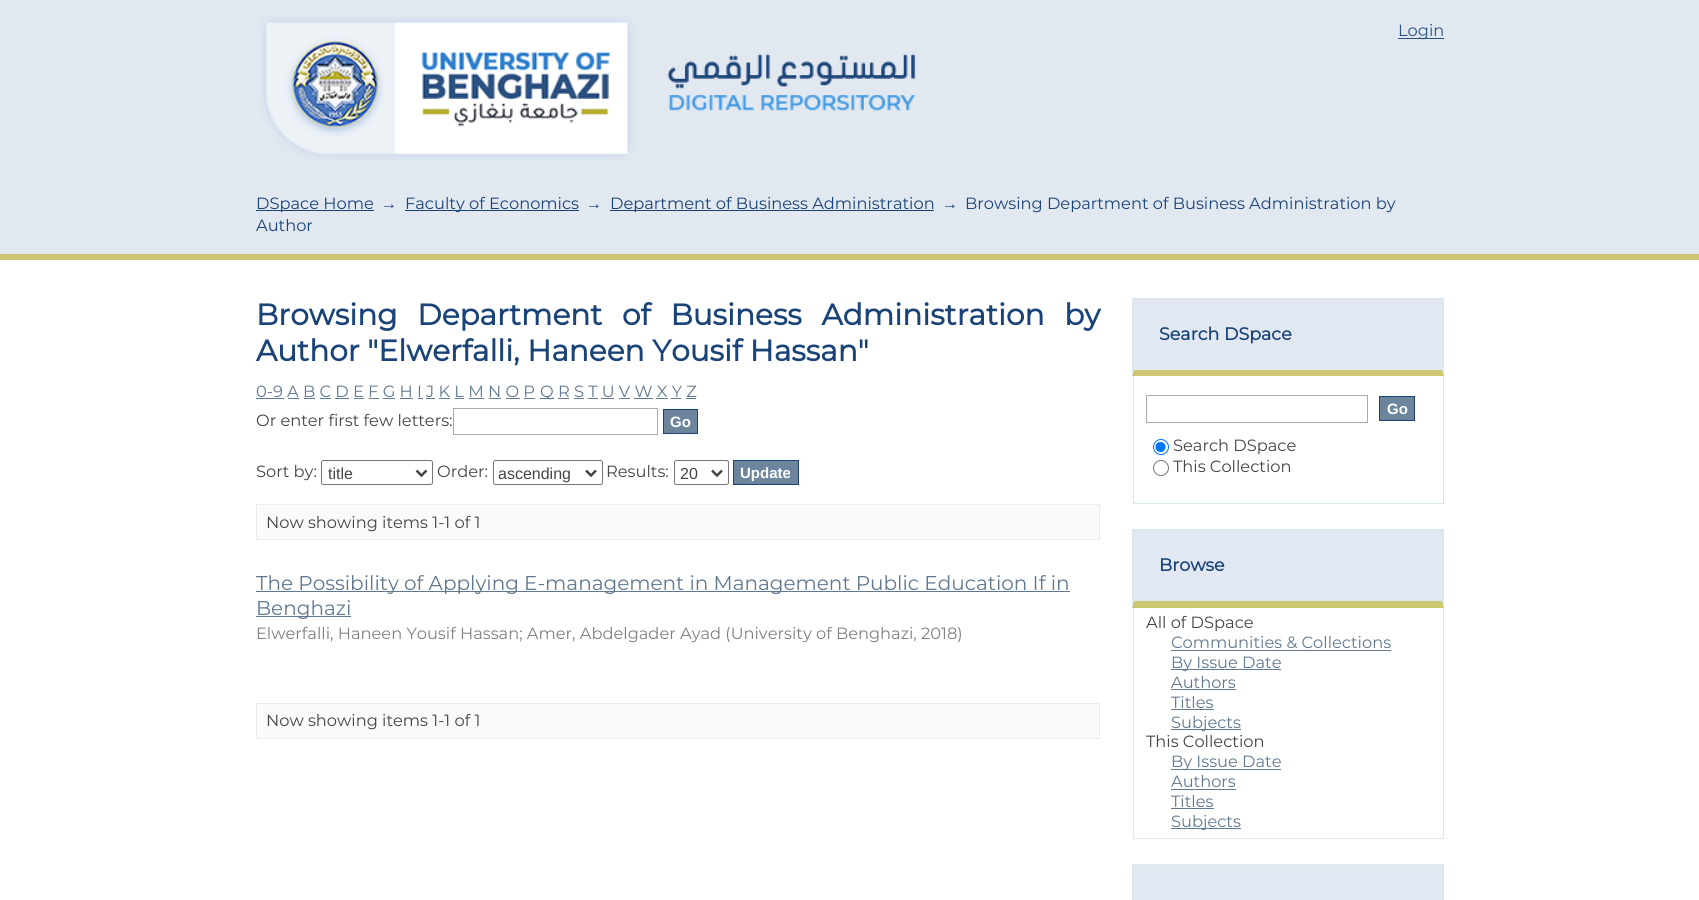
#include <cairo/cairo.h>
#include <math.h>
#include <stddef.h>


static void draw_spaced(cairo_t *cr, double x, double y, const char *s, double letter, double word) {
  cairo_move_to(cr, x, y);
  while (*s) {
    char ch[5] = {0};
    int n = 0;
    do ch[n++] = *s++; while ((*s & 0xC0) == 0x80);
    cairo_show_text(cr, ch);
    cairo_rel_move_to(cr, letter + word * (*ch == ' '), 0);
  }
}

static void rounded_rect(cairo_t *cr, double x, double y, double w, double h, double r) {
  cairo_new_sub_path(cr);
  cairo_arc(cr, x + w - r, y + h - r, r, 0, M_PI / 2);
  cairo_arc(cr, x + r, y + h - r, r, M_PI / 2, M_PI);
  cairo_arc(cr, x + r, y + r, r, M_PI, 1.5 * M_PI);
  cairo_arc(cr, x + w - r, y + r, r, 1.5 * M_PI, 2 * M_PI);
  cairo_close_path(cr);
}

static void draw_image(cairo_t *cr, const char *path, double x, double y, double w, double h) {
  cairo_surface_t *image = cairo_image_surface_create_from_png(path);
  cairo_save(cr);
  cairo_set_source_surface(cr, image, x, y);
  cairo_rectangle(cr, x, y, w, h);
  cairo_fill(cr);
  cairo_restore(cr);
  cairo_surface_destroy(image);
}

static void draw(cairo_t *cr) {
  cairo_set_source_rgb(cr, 1, 1, 1);
  cairo_paint(cr);
  cairo_set_source_rgb(cr, 226 / 255.0, 232 / 255.0, 240 / 255.0);
  cairo_rectangle(cr, 0, 0, 1699, 254);
  cairo_fill(cr);
  draw_image(cr, "images/1.png", 260, 16, 656, 144);
  cairo_set_source_rgb(cr, 44 / 255.0, 82 / 255.0, 130 / 255.0);
  cairo_rectangle(cr, 1398, 38, 46, 1);
  cairo_fill(cr);
  cairo_set_source_rgb(cr, 205 / 255.0, 199 / 255.0, 114 / 255.0);
  cairo_rectangle(cr, 0, 254, 1699, 6);
  cairo_fill(cr);
  cairo_set_source_rgb(cr, 26 / 255.0, 67 / 255.0, 119 / 255.0);
  cairo_rectangle(cr, 256, 210, 118, 1);
  cairo_fill(cr);
  cairo_rectangle(cr, 405, 210, 174, 1);
  cairo_fill(cr);
  cairo_rectangle(cr, 610, 210, 324, 1);
  cairo_fill(cr);
  cairo_set_source_rgb(cr, 96 / 255.0, 120 / 255.0, 144 / 255.0);
  cairo_rectangle(cr, 256, 398, 28, 1);
  cairo_fill(cr);
  cairo_rectangle(cr, 540, 398, 14, 1);
  cairo_fill(cr);
  cairo_rectangle(cr, 288, 398, 11, 1);
  cairo_fill(cr);
  cairo_rectangle(cr, 304, 398, 11, 1);
  cairo_fill(cr);
  cairo_rectangle(cr, 320, 398, 11, 1);
  cairo_fill(cr);
  cairo_rectangle(cr, 335, 398, 14, 1);
  cairo_fill(cr);
  cairo_rectangle(cr, 354, 398, 10, 1);
  cairo_fill(cr);
  cairo_rectangle(cr, 369, 398, 10, 1);
  cairo_fill(cr);
  cairo_rectangle(cr, 383, 398, 12, 1);
  cairo_fill(cr);
  cairo_rectangle(cr, 400, 398, 13, 1);
  cairo_fill(cr);
  cairo_rectangle(cr, 418, 398, 5, 1);
  cairo_fill(cr);
  cairo_rectangle(cr, 426, 398, 9, 1);
  cairo_fill(cr);
  cairo_rectangle(cr, 439, 398, 11, 1);
  cairo_fill(cr);
  cairo_rectangle(cr, 455, 398, 9, 1);
  cairo_fill(cr);
  cairo_rectangle(cr, 469, 398, 15, 1);
  cairo_fill(cr);
  cairo_rectangle(cr, 489, 398, 12, 1);
  cairo_fill(cr);
  cairo_rectangle(cr, 506, 398, 14, 1);
  cairo_fill(cr);
  cairo_rectangle(cr, 524, 398, 11, 1);
  cairo_fill(cr);
  cairo_rectangle(cr, 558, 398, 11, 1);
  cairo_fill(cr);
  cairo_rectangle(cr, 574, 398, 10, 1);
  cairo_fill(cr);
  cairo_rectangle(cr, 588, 398, 10, 1);
  cairo_fill(cr);
  cairo_rectangle(cr, 601, 398, 13, 1);
  cairo_fill(cr);
  cairo_rectangle(cr, 619, 398, 11, 1);
  cairo_fill(cr);
  cairo_rectangle(cr, 634, 398, 19, 1);
  cairo_fill(cr);
  cairo_rectangle(cr, 656, 398, 12, 1);
  cairo_fill(cr);
  cairo_rectangle(cr, 671, 398, 10, 1);
  cairo_fill(cr);
  cairo_rectangle(cr, 686, 398, 10, 1);
  cairo_fill(cr);
  cairo_rectangle(cr, 453.5, 408.5, 204, 26);
  cairo_set_source_rgb(cr, 170 / 255.0, 170 / 255.0, 170 / 255.0);
  cairo_set_line_width(cr, 1);
  cairo_stroke(cr);
  cairo_set_source_rgb(cr, 109 / 255.0, 133 / 255.0, 156 / 255.0);
  cairo_rectangle(cr, 663.5, 409.5, 34, 24);
  cairo_fill_preserve(cr);
  cairo_set_source_rgb(cr, 26 / 255.0, 67 / 255.0, 119 / 255.0);
  cairo_stroke(cr);
  rounded_rect(cr, 321.5, 460.5, 111, 24, 2);
  cairo_set_source_rgb(cr, 118 / 255.0, 118 / 255.0, 118 / 255.0);
  cairo_stroke(cr);
  cairo_new_path(cr);
  cairo_move_to(cr, 416.5, 470.5);
  cairo_line_to(cr, 421.5, 475.5);
  cairo_line_to(cr, 426.5, 470.5);
  cairo_set_source_rgb(cr, 68 / 255.0, 68 / 255.0, 68 / 255.0);
  cairo_set_line_width(cr, 2.5);
  cairo_stroke(cr);
  rounded_rect(cr, 493.5, 460.5, 109, 24, 2);
  cairo_set_source_rgb(cr, 118 / 255.0, 118 / 255.0, 118 / 255.0);
  cairo_set_line_width(cr, 1);
  cairo_stroke(cr);
  cairo_new_path(cr);
  cairo_move_to(cr, 586, 470.5);
  cairo_line_to(cr, 591, 475.5);
  cairo_line_to(cr, 596, 470.5);
  cairo_set_source_rgb(cr, 68 / 255.0, 68 / 255.0, 68 / 255.0);
  cairo_set_line_width(cr, 2.5);
  cairo_stroke(cr);
  rounded_rect(cr, 674.5, 460.5, 54, 24, 2);
  cairo_set_source_rgb(cr, 118 / 255.0, 118 / 255.0, 118 / 255.0);
  cairo_set_line_width(cr, 1);
  cairo_stroke(cr);
  cairo_new_path(cr);
  cairo_move_to(cr, 712, 470.5);
  cairo_line_to(cr, 717, 475.5);
  cairo_line_to(cr, 722, 470.5);
  cairo_set_source_rgb(cr, 68 / 255.0, 68 / 255.0, 68 / 255.0);
  cairo_set_line_width(cr, 2.5);
  cairo_stroke(cr);
  cairo_set_source_rgb(cr, 109 / 255.0, 133 / 255.0, 156 / 255.0);
  cairo_rectangle(cr, 733.5, 460.5, 65, 24);
  cairo_fill_preserve(cr);
  cairo_set_source_rgb(cr, 26 / 255.0, 67 / 255.0, 119 / 255.0);
  cairo_set_line_width(cr, 1);
  cairo_stroke(cr);
  cairo_set_source_rgb(cr, 250 / 255.0, 250 / 255.0, 250 / 255.0);
  cairo_rectangle(cr, 256.5, 504.5, 843, 35);
  cairo_fill_preserve(cr);
  cairo_set_source_rgb(cr, 235 / 255.0, 235 / 255.0, 235 / 255.0);
  cairo_stroke(cr);
  cairo_set_source_rgb(cr, 96 / 255.0, 120 / 255.0, 144 / 255.0);
  cairo_rectangle(cr, 256, 591, 814, 1);
  cairo_fill(cr);
  cairo_rectangle(cr, 256, 616, 95, 1);
  cairo_fill(cr);
  cairo_set_source_rgb(cr, 250 / 255.0, 250 / 255.0, 250 / 255.0);
  cairo_rectangle(cr, 256.5, 703.5, 843, 35);
  cairo_fill_preserve(cr);
  cairo_set_source_rgb(cr, 235 / 255.0, 235 / 255.0, 235 / 255.0);
  cairo_stroke(cr);
  cairo_set_source_rgb(cr, 226 / 255.0, 232 / 255.0, 241 / 255.0);
  cairo_rectangle(cr, 1134, 299, 308, 71);
  cairo_fill(cr);
  cairo_set_source_rgb(cr, 216 / 255.0, 232 / 255.0, 235 / 255.0);
  cairo_rectangle(cr, 1133, 298, 311, 1);
  cairo_fill(cr);
  cairo_new_path(cr);
  cairo_move_to(cr, 1444, 298);
  cairo_line_to(cr, 1444, 376);
  cairo_line_to(cr, 1442, 370);
  cairo_line_to(cr, 1442, 299);
  cairo_close_path(cr);
  cairo_fill(cr);
  cairo_set_source_rgb(cr, 205 / 255.0, 199 / 255.0, 114 / 255.0);
  cairo_new_path(cr);
  cairo_move_to(cr, 1444, 376);
  cairo_line_to(cr, 1132, 376);
  cairo_line_to(cr, 1134, 370);
  cairo_line_to(cr, 1442, 370);
  cairo_close_path(cr);
  cairo_fill(cr);
  cairo_set_source_rgb(cr, 216 / 255.0, 232 / 255.0, 235 / 255.0);
  cairo_new_path(cr);
  cairo_move_to(cr, 1132, 376);
  cairo_line_to(cr, 1132, 298);
  cairo_line_to(cr, 1134, 299);
  cairo_line_to(cr, 1134, 370);
  cairo_close_path(cr);
  cairo_fill(cr);
  cairo_rectangle(cr, 1443, 376, 1, 128);
  cairo_fill(cr);
  cairo_rectangle(cr, 1133, 503, 311, 1);
  cairo_fill(cr);
  cairo_rectangle(cr, 1133, 376, 1, 128);
  cairo_fill(cr);
  cairo_rectangle(cr, 1146.5, 395.5, 221, 27);
  cairo_set_source_rgb(cr, 170 / 255.0, 170 / 255.0, 170 / 255.0);
  cairo_stroke(cr);
  cairo_set_source_rgb(cr, 109 / 255.0, 133 / 255.0, 156 / 255.0);
  cairo_rectangle(cr, 1379.5, 396.5, 35, 24);
  cairo_fill_preserve(cr);
  cairo_set_source_rgb(cr, 26 / 255.0, 67 / 255.0, 119 / 255.0);
  cairo_stroke(cr);
  cairo_arc(cr, 1161, 447, 7.5, 0, 2 * M_PI);
  cairo_set_source_rgb(cr, 0, 117 / 255.0, 1);
  cairo_stroke(cr);
  cairo_arc(cr, 1160.5, 447, 5, 0, 2 * M_PI);
  cairo_fill(cr);
  cairo_arc(cr, 1161, 468, 7.5, 0, 2 * M_PI);
  cairo_set_source_rgb(cr, 118 / 255.0, 118 / 255.0, 118 / 255.0);
  cairo_stroke(cr);
  cairo_set_source_rgb(cr, 226 / 255.0, 232 / 255.0, 241 / 255.0);
  cairo_rectangle(cr, 1134, 530, 308, 71);
  cairo_fill(cr);
  cairo_set_source_rgb(cr, 216 / 255.0, 232 / 255.0, 235 / 255.0);
  cairo_rectangle(cr, 1133, 529, 311, 1);
  cairo_fill(cr);
  cairo_new_path(cr);
  cairo_move_to(cr, 1444, 529);
  cairo_line_to(cr, 1444, 608);
  cairo_line_to(cr, 1442, 601);
  cairo_line_to(cr, 1442, 530);
  cairo_close_path(cr);
  cairo_fill(cr);
  cairo_set_source_rgb(cr, 205 / 255.0, 199 / 255.0, 114 / 255.0);
  cairo_new_path(cr);
  cairo_move_to(cr, 1444, 608);
  cairo_line_to(cr, 1132, 608);
  cairo_line_to(cr, 1134, 601);
  cairo_line_to(cr, 1442, 601);
  cairo_close_path(cr);
  cairo_fill(cr);
  cairo_set_source_rgb(cr, 216 / 255.0, 232 / 255.0, 235 / 255.0);
  cairo_new_path(cr);
  cairo_move_to(cr, 1132, 608);
  cairo_line_to(cr, 1132, 529);
  cairo_line_to(cr, 1134, 530);
  cairo_line_to(cr, 1134, 601);
  cairo_close_path(cr);
  cairo_fill(cr);
  cairo_rectangle(cr, 1443, 608, 1, 231);
  cairo_fill(cr);
  cairo_rectangle(cr, 1133, 838, 311, 1);
  cairo_fill(cr);
  cairo_rectangle(cr, 1133, 608, 1, 231);
  cairo_fill(cr);
  cairo_set_source_rgb(cr, 96 / 255.0, 120 / 255.0, 144 / 255.0);
  cairo_rectangle(cr, 1171, 650, 220, 1);
  cairo_fill(cr);
  cairo_rectangle(cr, 1171, 669, 110, 1);
  cairo_fill(cr);
  cairo_rectangle(cr, 1171, 689, 65, 1);
  cairo_fill(cr);
  cairo_rectangle(cr, 1171, 709, 43, 1);
  cairo_fill(cr);
  cairo_rectangle(cr, 1171, 729, 70, 1);
  cairo_fill(cr);
  cairo_rectangle(cr, 1171, 769, 110, 1);
  cairo_fill(cr);
  cairo_rectangle(cr, 1171, 789, 65, 1);
  cairo_fill(cr);
  cairo_rectangle(cr, 1171, 808, 43, 1);
  cairo_fill(cr);
  cairo_rectangle(cr, 1171, 828, 70, 1);
  cairo_fill(cr);
  cairo_set_source_rgb(cr, 226 / 255.0, 232 / 255.0, 241 / 255.0);
  cairo_rectangle(cr, 1134, 865, 308, 35);
  cairo_fill(cr);
  cairo_set_source_rgb(cr, 216 / 255.0, 232 / 255.0, 235 / 255.0);
  cairo_rectangle(cr, 1133, 864, 311, 1);
  cairo_fill(cr);
  cairo_new_path(cr);
  cairo_move_to(cr, 1444, 864);
  cairo_line_to(cr, 1444, 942);
  cairo_line_to(cr, 1442, 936);
  cairo_line_to(cr, 1442, 865);
  cairo_close_path(cr);
  cairo_fill(cr);
  cairo_new_path(cr);
  cairo_move_to(cr, 1132, 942);
  cairo_line_to(cr, 1132, 864);
  cairo_line_to(cr, 1134, 865);
  cairo_line_to(cr, 1134, 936);
  cairo_close_path(cr);
  cairo_fill(cr);
  cairo_select_font_face(cr, "Montserrat Thin", CAIRO_FONT_SLANT_NORMAL, CAIRO_FONT_WEIGHT_NORMAL);
  cairo_set_font_size(cr, 16.25);
  cairo_set_source_rgb(cr, 44 / 255.0, 82 / 255.0, 130 / 255.0);
  cairo_move_to(cr, 1398, 36);
  cairo_show_text(cr, "Login");
  cairo_set_source_rgb(cr, 26 / 255.0, 67 / 255.0, 119 / 255.0);
  cairo_move_to(cr, 256, 209);
  cairo_show_text(cr, "DSpace Home");
  cairo_select_font_face(cr, "Liberation Mono", CAIRO_FONT_SLANT_NORMAL, CAIRO_FONT_WEIGHT_NORMAL);
  cairo_move_to(cr, 384, 209);
  cairo_show_text(cr, "→");
  cairo_select_font_face(cr, "Montserrat Thin", CAIRO_FONT_SLANT_NORMAL, CAIRO_FONT_WEIGHT_NORMAL);
  cairo_move_to(cr, 405, 209);
  cairo_show_text(cr, "Faculty of Economics");
  cairo_select_font_face(cr, "Liberation Mono", CAIRO_FONT_SLANT_NORMAL, CAIRO_FONT_WEIGHT_NORMAL);
  cairo_move_to(cr, 589, 209);
  cairo_show_text(cr, "→");
  cairo_select_font_face(cr, "Montserrat Thin", CAIRO_FONT_SLANT_NORMAL, CAIRO_FONT_WEIGHT_NORMAL);
  cairo_move_to(cr, 610, 209);
  cairo_show_text(cr, "Department of Business Administration");
  cairo_select_font_face(cr, "Liberation Mono", CAIRO_FONT_SLANT_NORMAL, CAIRO_FONT_WEIGHT_NORMAL);
  cairo_move_to(cr, 945, 209);
  cairo_show_text(cr, "→");
  cairo_select_font_face(cr, "Montserrat Thin", CAIRO_FONT_SLANT_NORMAL, CAIRO_FONT_WEIGHT_NORMAL);
  cairo_move_to(cr, 965, 209);
  cairo_show_text(cr, "Browsing Department of Business Administration by");
  cairo_move_to(cr, 256, 231);
  cairo_show_text(cr, "Author");
  cairo_select_font_face(cr, "Montserrat", CAIRO_FONT_SLANT_NORMAL, CAIRO_FONT_WEIGHT_BOLD);
  cairo_set_font_size(cr, 29.6);
  draw_spaced(cr, 256, 325, "Browsing Department of Business Administration by", 0, 12);
  cairo_move_to(cr, 256, 361);
  cairo_show_text(cr, "Author \"Elwerfalli, Haneen Yousif Hassan\"");
  cairo_select_font_face(cr, "Montserrat Thin", CAIRO_FONT_SLANT_NORMAL, CAIRO_FONT_WEIGHT_NORMAL);
  cairo_set_font_size(cr, 16.25);
  cairo_set_source_rgb(cr, 96 / 255.0, 120 / 255.0, 144 / 255.0);
  cairo_move_to(cr, 256, 397);
  cairo_show_text(cr, "0-9 A B C D E F G H I J K L M N O P");
  cairo_move_to(cr, 540, 397);
  cairo_show_text(cr, "Q R S T U V W X Y Z");
  cairo_set_source_rgb(cr, 68 / 255.0, 68 / 255.0, 68 / 255.0);
  cairo_move_to(cr, 256, 426);
  cairo_show_text(cr, "Or enter first few letters:");
  cairo_select_font_face(cr, "Liberation Sans", CAIRO_FONT_SLANT_NORMAL, CAIRO_FONT_WEIGHT_BOLD);
  cairo_set_font_size(cr, 15);
  cairo_set_source_rgb(cr, 1, 1, 1);
  cairo_move_to(cr, 670, 427);
  cairo_show_text(cr, "Go");
  cairo_select_font_face(cr, "Montserrat Thin", CAIRO_FONT_SLANT_NORMAL, CAIRO_FONT_WEIGHT_NORMAL);
  cairo_set_font_size(cr, 16.25);
  cairo_set_source_rgb(cr, 68 / 255.0, 68 / 255.0, 68 / 255.0);
  cairo_move_to(cr, 256, 477);
  cairo_show_text(cr, "Sort by:");
  cairo_select_font_face(cr, "Liberation Sans", CAIRO_FONT_SLANT_NORMAL, CAIRO_FONT_WEIGHT_NORMAL);
  cairo_set_font_size(cr, 16);
  cairo_move_to(cr, 328, 479);
  cairo_show_text(cr, "title");
  cairo_select_font_face(cr, "Montserrat Thin", CAIRO_FONT_SLANT_NORMAL, CAIRO_FONT_WEIGHT_NORMAL);
  cairo_set_font_size(cr, 16.25);
  cairo_move_to(cr, 437, 477);
  cairo_show_text(cr, "Order:");
  cairo_select_font_face(cr, "Liberation Sans", CAIRO_FONT_SLANT_NORMAL, CAIRO_FONT_WEIGHT_NORMAL);
  cairo_set_font_size(cr, 16);
  cairo_move_to(cr, 498, 479);
  cairo_show_text(cr, "ascending");
  cairo_select_font_face(cr, "Montserrat Thin", CAIRO_FONT_SLANT_NORMAL, CAIRO_FONT_WEIGHT_NORMAL);
  cairo_set_font_size(cr, 16.25);
  cairo_move_to(cr, 606, 477);
  cairo_show_text(cr, "Results:");
  cairo_select_font_face(cr, "Liberation Sans", CAIRO_FONT_SLANT_NORMAL, CAIRO_FONT_WEIGHT_NORMAL);
  cairo_set_font_size(cr, 16);
  cairo_move_to(cr, 680, 479);
  cairo_show_text(cr, "20");
  cairo_select_font_face(cr, "Liberation Sans", CAIRO_FONT_SLANT_NORMAL, CAIRO_FONT_WEIGHT_BOLD);
  cairo_set_font_size(cr, 15);
  cairo_set_source_rgb(cr, 1, 1, 1);
  cairo_move_to(cr, 740, 478);
  cairo_show_text(cr, "Update");
  cairo_select_font_face(cr, "Montserrat Thin", CAIRO_FONT_SLANT_NORMAL, CAIRO_FONT_WEIGHT_NORMAL);
  cairo_set_font_size(cr, 16.25);
  cairo_set_source_rgb(cr, 68 / 255.0, 68 / 255.0, 68 / 255.0);
  cairo_move_to(cr, 266, 528);
  cairo_show_text(cr, "Now showing items 1-1 of 1");
  cairo_set_font_size(cr, 20);
  cairo_set_source_rgb(cr, 96 / 255.0, 120 / 255.0, 144 / 255.0);
  cairo_move_to(cr, 256, 590);
  cairo_show_text(cr, "The Possibility of Applying E-management in Management Public Education If in");
  cairo_move_to(cr, 256, 615);
  cairo_show_text(cr, "Benghazi");
  cairo_set_font_size(cr, 16.25);
  cairo_set_source_rgb(cr, 128 / 255.0, 128 / 255.0, 128 / 255.0);
  cairo_move_to(cr, 256, 639);
  cairo_show_text(cr, "Elwerfalli, Haneen Yousif Hassan; Amer, Abdelgader Ayad (University of Benghazi, 2018)");
  cairo_set_source_rgb(cr, 68 / 255.0, 68 / 255.0, 68 / 255.0);
  cairo_move_to(cr, 266, 726);
  cairo_show_text(cr, "Now showing items 1-1 of 1");
  cairo_select_font_face(cr, "Montserrat", CAIRO_FONT_SLANT_NORMAL, CAIRO_FONT_WEIGHT_BOLD);
  cairo_set_font_size(cr, 17.5);
  cairo_set_source_rgb(cr, 26 / 255.0, 67 / 255.0, 119 / 255.0);
  cairo_move_to(cr, 1159, 340);
  cairo_show_text(cr, "Search DSpace");
  cairo_select_font_face(cr, "Liberation Sans", CAIRO_FONT_SLANT_NORMAL, CAIRO_FONT_WEIGHT_BOLD);
  cairo_set_font_size(cr, 15);
  cairo_set_source_rgb(cr, 1, 1, 1);
  cairo_move_to(cr, 1387, 414);
  cairo_show_text(cr, "Go");
  cairo_select_font_face(cr, "Montserrat Thin", CAIRO_FONT_SLANT_NORMAL, CAIRO_FONT_WEIGHT_NORMAL);
  cairo_set_font_size(cr, 16.25);
  cairo_set_source_rgb(cr, 68 / 255.0, 68 / 255.0, 68 / 255.0);
  cairo_move_to(cr, 1173, 451);
  cairo_show_text(cr, "Search DSpace");
  cairo_move_to(cr, 1173, 472);
  cairo_show_text(cr, "This Collection");
  cairo_select_font_face(cr, "Montserrat", CAIRO_FONT_SLANT_NORMAL, CAIRO_FONT_WEIGHT_BOLD);
  cairo_set_font_size(cr, 17.5);
  cairo_set_source_rgb(cr, 26 / 255.0, 67 / 255.0, 119 / 255.0);
  cairo_move_to(cr, 1159, 571);
  cairo_show_text(cr, "Browse");
  cairo_select_font_face(cr, "Montserrat Thin", CAIRO_FONT_SLANT_NORMAL, CAIRO_FONT_WEIGHT_NORMAL);
  cairo_set_font_size(cr, 16.25);
  cairo_set_source_rgb(cr, 68 / 255.0, 68 / 255.0, 68 / 255.0);
  cairo_move_to(cr, 1146, 628);
  cairo_show_text(cr, "All of DSpace");
  cairo_set_source_rgb(cr, 96 / 255.0, 120 / 255.0, 144 / 255.0);
  cairo_move_to(cr, 1171, 648);
  cairo_show_text(cr, "Communities & Collections");
  cairo_move_to(cr, 1171, 668);
  cairo_show_text(cr, "By Issue Date");
  cairo_move_to(cr, 1171, 688);
  cairo_show_text(cr, "Authors");
  cairo_move_to(cr, 1171, 708);
  cairo_show_text(cr, "Titles");
  cairo_move_to(cr, 1171, 728);
  cairo_show_text(cr, "Subjects");
  cairo_set_source_rgb(cr, 68 / 255.0, 68 / 255.0, 68 / 255.0);
  cairo_move_to(cr, 1146, 747);
  cairo_show_text(cr, "This Collection");
  cairo_set_source_rgb(cr, 96 / 255.0, 120 / 255.0, 144 / 255.0);
  cairo_move_to(cr, 1171, 767);
  cairo_show_text(cr, "By Issue Date");
  cairo_move_to(cr, 1171, 787);
  cairo_show_text(cr, "Authors");
  cairo_move_to(cr, 1171, 807);
  cairo_show_text(cr, "Titles");
  cairo_move_to(cr, 1171, 827);
  cairo_show_text(cr, "Subjects");
}

int main(void) {
  cairo_surface_t *surface = cairo_image_surface_create(CAIRO_FORMAT_RGB24, 1699, 900);
  cairo_t *cr = cairo_create(surface);
  cairo_font_options_t *options = cairo_font_options_create();
  cairo_font_options_set_hint_metrics(options, CAIRO_HINT_METRICS_OFF);
  cairo_font_options_set_hint_style(options, CAIRO_HINT_STYLE_NONE);
  cairo_set_font_options(cr, options);
  cairo_set_miter_limit(cr, 4);
  draw(cr);
  cairo_surface_write_to_png(surface, "out.png");
  cairo_font_options_destroy(options);
  cairo_destroy(cr);
  cairo_surface_destroy(surface);
  return 0;
}
